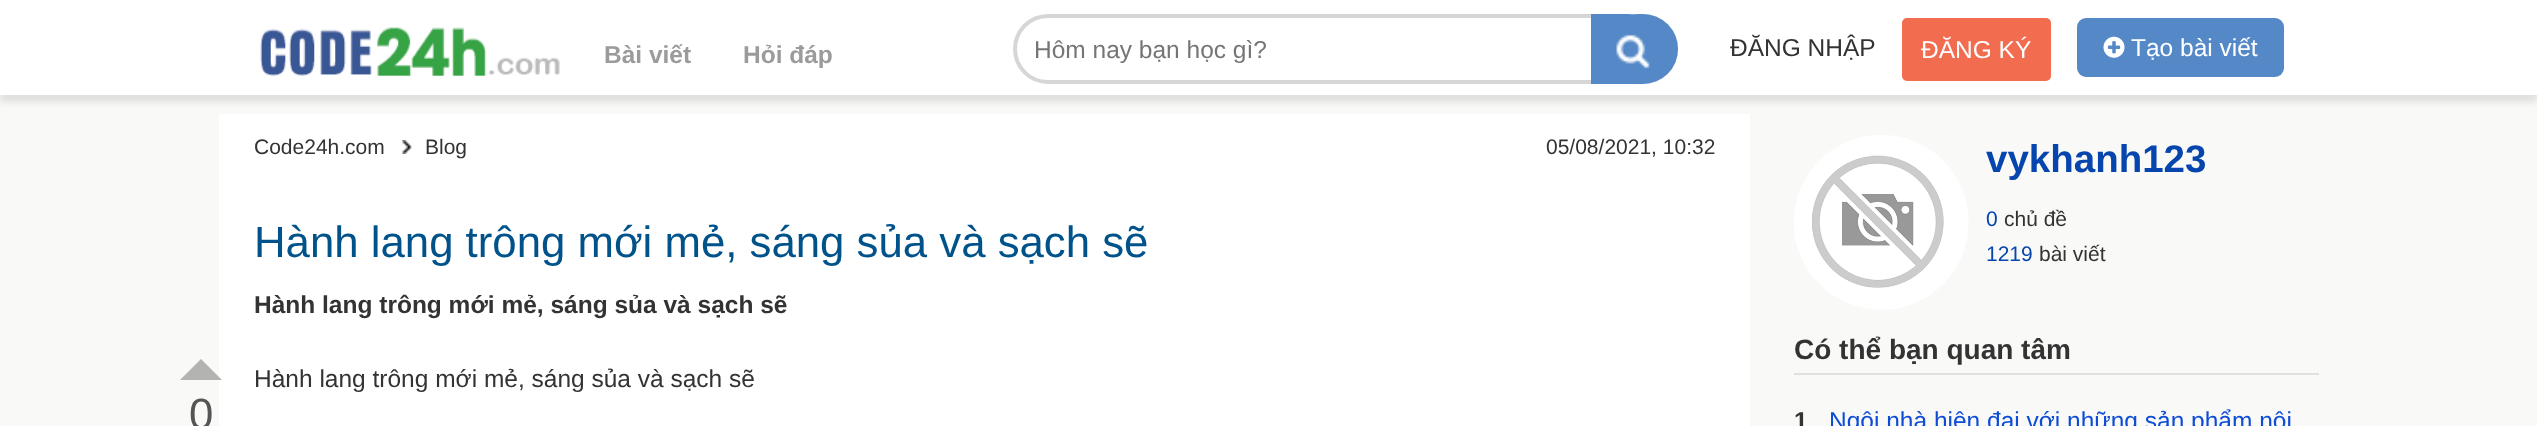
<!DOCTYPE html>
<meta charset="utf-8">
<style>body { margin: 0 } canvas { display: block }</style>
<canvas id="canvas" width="2537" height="426"></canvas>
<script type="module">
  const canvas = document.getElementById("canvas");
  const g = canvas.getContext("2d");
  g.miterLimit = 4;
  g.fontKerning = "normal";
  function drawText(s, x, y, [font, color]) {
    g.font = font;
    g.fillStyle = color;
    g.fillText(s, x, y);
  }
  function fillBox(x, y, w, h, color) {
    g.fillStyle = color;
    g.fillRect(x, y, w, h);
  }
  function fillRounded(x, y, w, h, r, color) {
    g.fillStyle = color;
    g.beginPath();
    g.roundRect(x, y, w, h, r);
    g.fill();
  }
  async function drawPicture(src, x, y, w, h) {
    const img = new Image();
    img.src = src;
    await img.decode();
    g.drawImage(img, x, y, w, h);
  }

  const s1 = ["bold 24.5px Liberation Sans", "#9B9B9B"];
  const s2 = ["24.5px Liberation Sans", "#757575"];
  const s3 = ["24.5px Liberation Sans", "#333333"];
  const s4 = ["24.5px Liberation Sans", "#FFFFFF"];
  const s5 = ["43.75px Liberation Sans", "#555555"];
  const s6 = ["21px Liberation Sans", "#333333"];
  const s7 = ["43.75px Liberation Sans", "#00528B"];
  const s8 = ["bold 24.5px Liberation Sans", "#333333"];
  const s9 = ["bold 38.5px Liberation Sans", "#0645AD"];
  const s10 = ["21px Liberation Sans", "#0645AD"];
  const s11 = ["bold 28px Liberation Sans", "#333333"];
  const s12 = ["24.5px Liberation Sans", "#0E4CD7"];

  fillBox(0, 0, 2537, 426, "#F9FAF7");
  g.fillStyle = "rgba(0, 0, 0, 0.1)";
  g.filter = "blur(3.5px)";
  g.beginPath();
  g.rect(0, 7, 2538, 95);
  g.fill();
  g.filter = "none";
  fillBox(0, 0, 2537, 95, "#FFFFFF");
  await drawPicture("pic1.png", 260, 27, 300, 49);
  drawText("Bài viết", 604, 63, s1);
  drawText("Hỏi đáp", 743, 63, s1);
  g.beginPath();
  g.roundRect(1015, 16, 661, 66, 33);
  g.strokeStyle = "#D6D6D7";
  g.lineWidth = 4;
  g.stroke();
  drawText("Hôm nay bạn học gì?", 1034, 58, s2);
  g.fillStyle = "#5488C7";
  g.beginPath();
  g.roundRect(1591, 14, 87, 70, [0, 35, 35, 0]);
  g.fill();
  await drawPicture("pic2.png", 1616, 14, 34, 55);
  drawText("ĐĂNG NHẬP", 1730, 56, s3);
  g.fillStyle = "#F26C50";
  g.beginPath();
  g.roundRect(1903, 19, 147, 61, 4);
  g.fill();
  g.strokeStyle = "#F26C4F";
  g.lineWidth = 2;
  g.stroke();
  drawText("ĐĂNG KÝ", 1921, 58, s4);
  fillRounded(2077, 18, 207, 59, 9, "#5488C7");
  await drawPicture("pic3.png", 2103, 36, 22, 22);
  drawText("Tạo bài viết", 2131, 56, s4);
  fillBox(219, 114, 1531, 312, "#FFFFFF");
  g.fillStyle = "rgba(155, 155, 155, 0.75)";
  g.beginPath();
  g.moveTo(222, 380);
  g.lineTo(180, 380);
  g.lineTo(201, 359);
  g.closePath();
  g.fill();
  drawText("0", 189, 429, s5);
  drawText("Code24h.com", 254, 154, s6);
  await drawPicture("pic4.png", 402, 140, 10, 14);
  drawText("Blog", 425, 154, s6);
  drawText("05/08/2021, 10:32", 1546, 154, s6);
  drawText("Hành lang trông mới mẻ, sáng sủa và sạch sẽ", 254, 257, s7);
  drawText("Hành lang trông mới mẻ, sáng sủa và sạch sẽ", 254, 313, s8);
  drawText("Hành lang trông mới mẻ, sáng sủa và sạch sẽ", 254, 387, s3);
  await drawPicture("pic5.png", 1794, 135, 175, 175);
  drawText("vykhanh123", 1986, 172, s9);
  drawText("0", 1986, 226, s10);
  drawText("chủ đề", 2004, 226, s6);
  drawText("1219", 1986, 261, s10);
  drawText("bài viết", 2039, 261, s6);
  fillBox(1794, 373, 525, 2, "#E0E1DE");
  drawText("Có thể bạn quan tâm", 1794, 359, s11);
  drawText("1", 1794, 429, s8);
  drawText("Ngôi nhà hiện đại với những sản phẩm nội", 1829, 429, s12);
</script>
